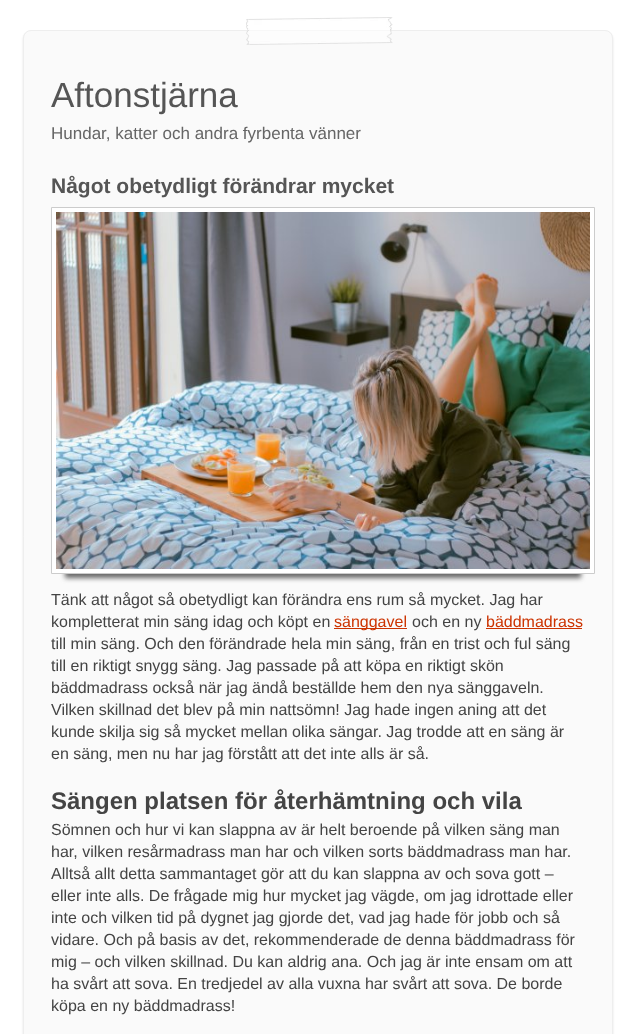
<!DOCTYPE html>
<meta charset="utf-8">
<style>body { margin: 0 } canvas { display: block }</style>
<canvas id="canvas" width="636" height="1034"></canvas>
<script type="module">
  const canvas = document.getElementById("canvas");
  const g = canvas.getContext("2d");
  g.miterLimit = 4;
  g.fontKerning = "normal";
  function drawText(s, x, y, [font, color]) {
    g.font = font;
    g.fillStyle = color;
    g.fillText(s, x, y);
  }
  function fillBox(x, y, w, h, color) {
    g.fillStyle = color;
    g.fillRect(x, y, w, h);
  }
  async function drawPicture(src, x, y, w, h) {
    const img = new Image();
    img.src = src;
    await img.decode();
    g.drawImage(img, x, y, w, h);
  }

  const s1 = ["35px Liberation Sans", "#555555"];
  const s2 = ["17px Liberation Sans", "#666666"];
  const s3 = ["bold 21px Liberation Sans", "#555555"];
  const s4 = ["16px Liberation Sans", "#444444"];
  const s5 = ["16px Liberation Sans", "#CC3300"];
  const s6 = ["bold 24px Liberation Sans", "#444444"];

  fillBox(0, 0, 636, 1034, "#FFFFFF");
  g.fillStyle = "rgba(0, 0, 0, 0.1)";
  g.filter = "blur(1px)";
  g.beginPath();
  g.roundRect(23, 32, 590, 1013, 8);
  g.fill();
  g.filter = "none";
  g.fillStyle = "#FAFAFA";
  g.beginPath();
  g.roundRect(23.5, 30.5, 589, 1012, 7.5);
  g.fill();
  g.strokeStyle = "#EEEEEE";
  g.stroke();
  await drawPicture("pic1.png", 246, 17, 147, 28);
  drawText("Aftonstjärna", 51, 107, s1);
  drawText("Hundar, katter och andra fyrbenta vänner", 51, 139, s2);
  drawText("Något obetydligt förändrar mycket", 51, 193, s3);
  g.fillStyle = "#666666";
  g.filter = "blur(2.5px)";
  g.beginPath();
  g.rect(65, 239, 516, 339);
  g.fill();
  g.filter = "none";
  g.fillStyle = "#FFFFFF";
  g.beginPath();
  g.rect(51.5, 207.5, 543, 366);
  g.fill();
  g.strokeStyle = "#CCCCCC";
  g.stroke();
  await drawPicture("pic2.png", 56, 212, 534, 357);
  drawText("Tänk att något så obetydligt kan förändra ens rum så mycket. Jag har", 51, 605, s4);
  drawText("kompletterat min säng idag och köpt en", 51, 627, s4);
  fillBox(334, 628, 73, 1, "#CC3300");
  drawText("sänggavel", 334, 627, s5);
  drawText("och en ny", 412, 627, s4);
  drawText("bäddmadrass", 486, 627, s5);
  fillBox(486, 628, 96, 1, "#CC3300");
  drawText("till min säng. Och den förändrade hela min säng, från en trist och ful säng", 51, 649, s4);
  drawText("till en riktigt snygg säng. Jag passade på att köpa en riktigt skön", 51, 671, s4);
  drawText("bäddmadrass också när jag ändå beställde hem den nya sänggaveln.", 51, 693, s4);
  drawText("Vilken skillnad det blev på min nattsömn! Jag hade ingen aning att det", 51, 715, s4);
  drawText("kunde skilja sig så mycket mellan olika sängar. Jag trodde att en säng är", 51, 737, s4);
  drawText("en säng, men nu har jag förstått att det inte alls är så.", 51, 759, s4);
  drawText("Sängen platsen för återhämtning och vila", 51, 809, s6);
  drawText("Sömnen och hur vi kan slappna av är helt beroende på vilken säng man", 51, 835, s4);
  drawText("har, vilken resårmadrass man har och vilken sorts bäddmadrass man har.", 51, 857, s4);
  drawText("Alltså allt detta sammantaget gör att du kan slappna av och sova gott –", 51, 879, s4);
  drawText("eller inte alls. De frågade mig hur mycket jag vägde, om jag idrottade eller", 51, 901, s4);
  drawText("inte och vilken tid på dygnet jag gjorde det, vad jag hade för jobb och så", 51, 923, s4);
  drawText("vidare. Och på basis av det, rekommenderade de denna bäddmadrass för", 51, 945, s4);
  drawText("mig – och vilken skillnad. Du kan aldrig ana. Och jag är inte ensam om att", 51, 967, s4);
  drawText("ha svårt att sova. En tredjedel av alla vuxna har svårt att sova. De borde", 51, 989, s4);
  drawText("köpa en ny bäddmadrass!", 51, 1011, s4);
</script>
